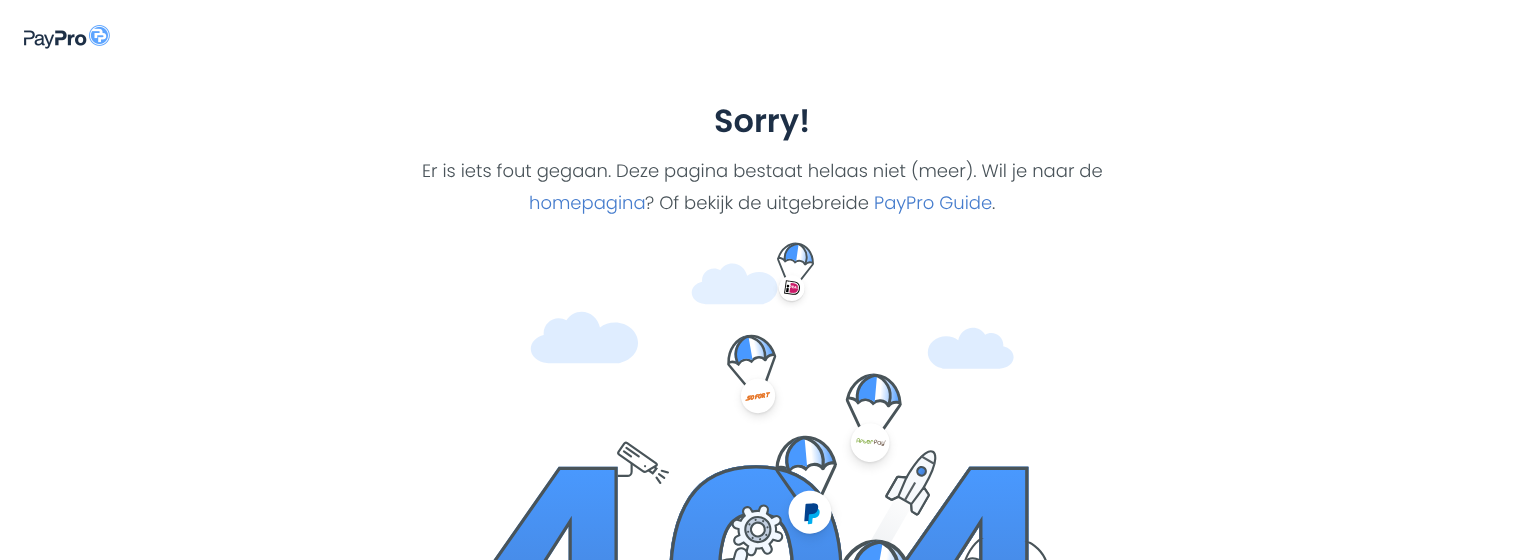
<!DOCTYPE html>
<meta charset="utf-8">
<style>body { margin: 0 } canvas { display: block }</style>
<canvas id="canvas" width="1524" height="560"></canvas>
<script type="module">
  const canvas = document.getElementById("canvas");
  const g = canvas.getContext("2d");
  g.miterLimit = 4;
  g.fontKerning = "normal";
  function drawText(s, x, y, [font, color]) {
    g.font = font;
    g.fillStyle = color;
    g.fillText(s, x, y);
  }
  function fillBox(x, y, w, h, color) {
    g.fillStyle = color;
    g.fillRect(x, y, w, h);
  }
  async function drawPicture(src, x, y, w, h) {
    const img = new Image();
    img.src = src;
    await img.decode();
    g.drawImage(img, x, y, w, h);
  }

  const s1 = ["600 32px Poppins", "#1D2F46"];
  const s2 = ["300 18px Poppins", "#495359"];
  const s3 = ["300 18px Poppins", "#457CCD"];

  fillBox(0, 0, 1524, 560, "#FFFFFF");
  await drawPicture("pic1.png", 24, 25, 86, 24);
  drawText("Sorry!", 714, 132, s1);
  drawText("Er is iets fout gegaan. Deze pagina bestaat helaas niet (meer). Wil je naar de", 422, 177, s2);
  drawText("homepagina", 529, 209, s3);
  drawText("? Of bekijk de uitgebreide", 645, 209, s2);
  drawText("PayPro Guide", 874, 209, s3);
  drawText(".", 992, 209, s2);
  await drawPicture("pic2.png", 493, 242, 554, 318);
</script>
